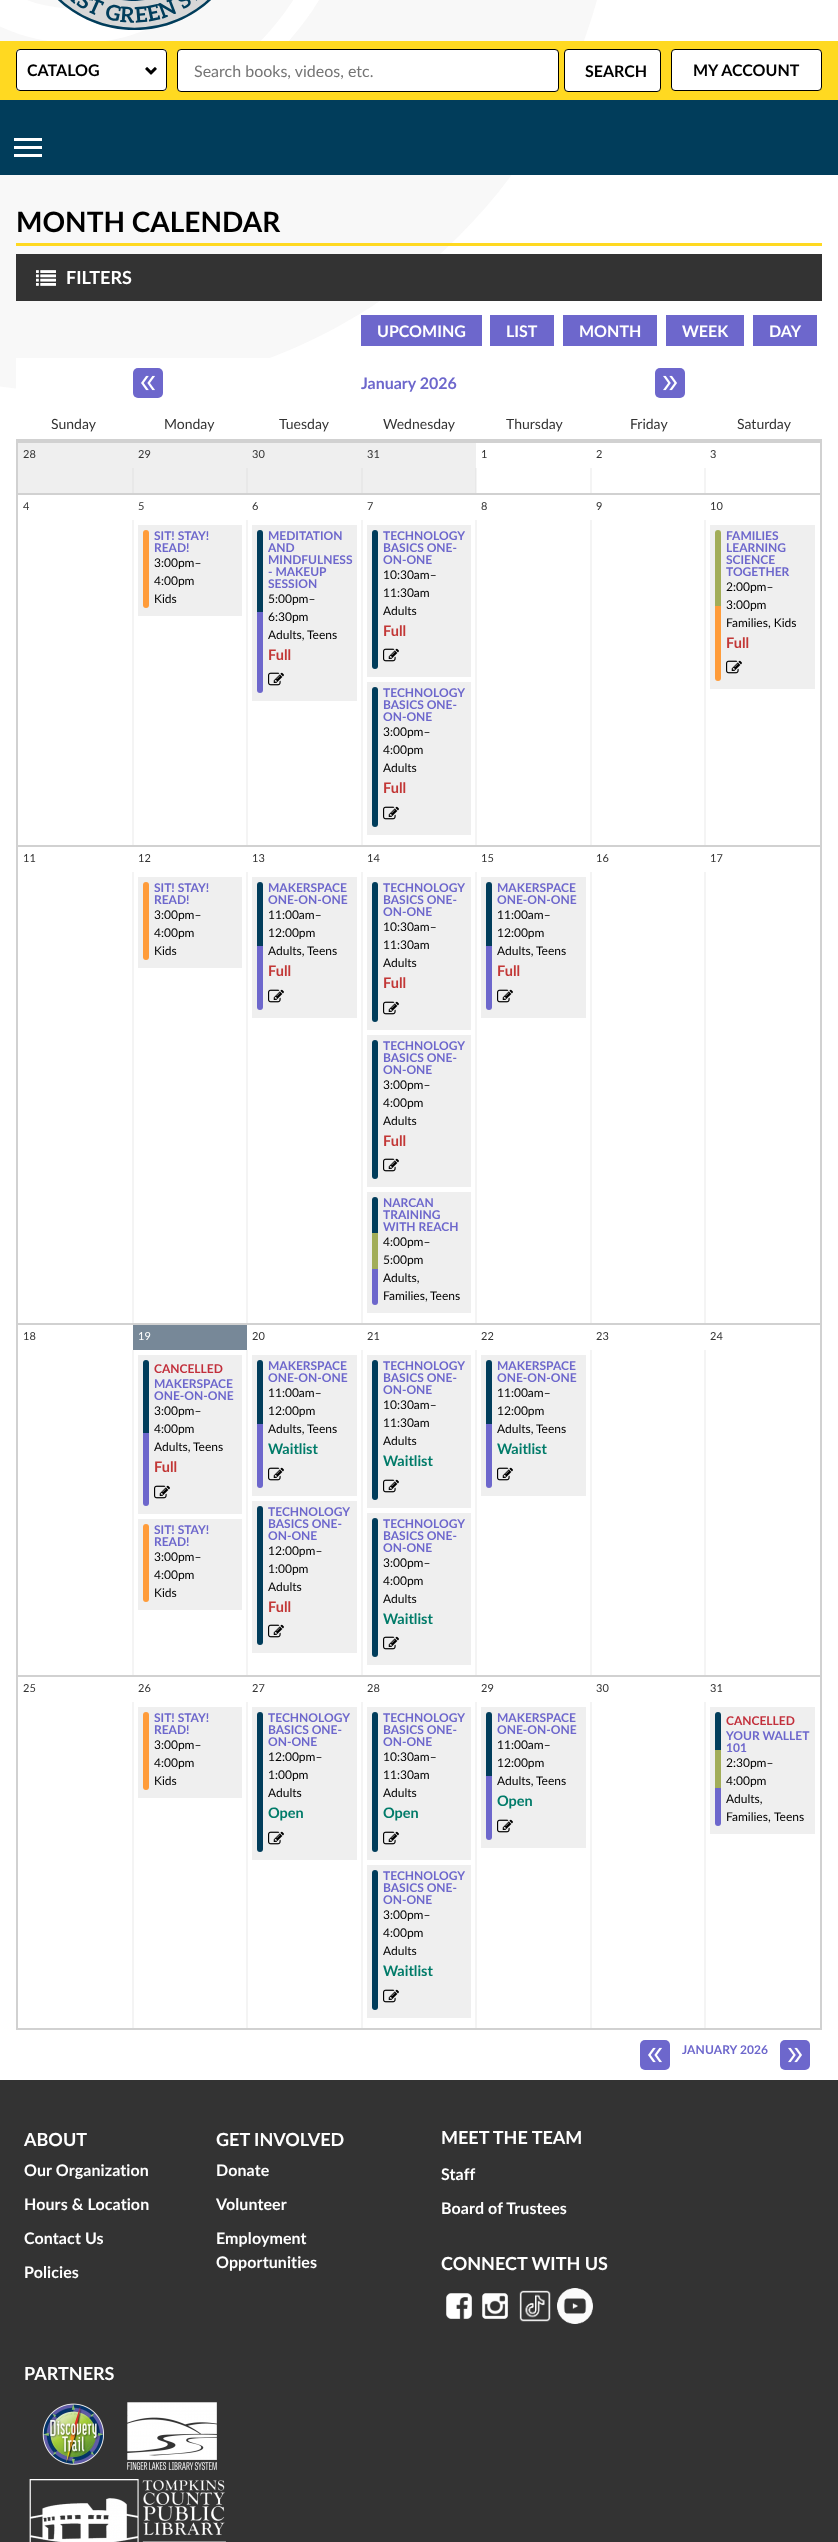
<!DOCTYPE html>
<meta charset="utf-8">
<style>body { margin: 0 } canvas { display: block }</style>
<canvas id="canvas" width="838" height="2542"></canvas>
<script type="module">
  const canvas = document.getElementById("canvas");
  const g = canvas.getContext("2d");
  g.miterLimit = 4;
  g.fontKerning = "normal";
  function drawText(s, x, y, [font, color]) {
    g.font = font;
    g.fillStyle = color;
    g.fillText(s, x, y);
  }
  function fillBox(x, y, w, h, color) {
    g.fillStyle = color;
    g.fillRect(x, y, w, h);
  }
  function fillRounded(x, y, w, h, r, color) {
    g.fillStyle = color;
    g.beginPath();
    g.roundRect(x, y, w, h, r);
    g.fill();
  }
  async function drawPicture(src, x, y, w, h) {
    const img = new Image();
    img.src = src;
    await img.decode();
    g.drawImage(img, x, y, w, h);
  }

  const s1 = ["bold 16px Lato", "#000000"];
  const s2 = ["16px Lato", "#757575"];
  const s3 = ["bold 28px Lato", "#000000"];
  const s4 = ["bold 18px Lato", "#FFFFFF"];
  const s5 = ["bold 16px Lato", "#FFFFFF"];
  const s6 = ["bold 16px Lato", "#6D67CC"];
  const s7 = ["14px Lato", "#333333"];
  const s8 = ["11px Lato", "#333333"];
  const s9 = ["bold 12px Lato", "#6D67CC"];
  const s10 = ["12px Lato", "#000000"];
  const s11 = ["bold 14.5px Lato", "#C23736"];
  const s12 = ["11px Lato", "#FFFFFF"];
  const s13 = ["bold 12px Lato", "#C22F3B"];
  const s14 = ["bold 14.5px Lato", "#007B69"];

  fillBox(0, 0, 838, 2542, "#FFFFFF");
  await drawPicture("pic1.png", 0, 0, 597, 389);
  await drawPicture("pic2.png", 58, 0, 153, 30);
  fillBox(0, 41, 838, 59, "#FFD921");
  fillRounded(16, 49, 151, 42, 4, "#FFFFFF");
  await drawPicture("pic3.png", 145, 67, 12, 8);
  g.beginPath();
  g.roundRect(16.5, 49.5, 150, 41, 3.5);
  g.strokeStyle = "#000000";
  g.stroke();
  drawText("CATALOG", 27, 76, s1);
  g.fillStyle = "#FFFFFF";
  g.beginPath();
  g.roundRect(177.5, 49.5, 381, 42, 3.5);
  g.fill();
  g.stroke();
  drawText("Search books, videos, etc.", 194, 77, s2);
  g.fillStyle = "#FFFFFF";
  g.beginPath();
  g.roundRect(564.5, 49.5, 96, 42, 3.5);
  g.fill();
  g.stroke();
  drawText("SEARCH", 585, 77, s1);
  g.fillStyle = "#FFFFFF";
  g.beginPath();
  g.roundRect(671.5, 49.5, 150, 41, 3.5);
  g.fill();
  g.stroke();
  drawText("MY ACCOUNT", 693, 76, s1);
  fillBox(0, 100, 838, 75, "#013D5B");
  fillBox(14, 138, 28, 3, "#FFFFFF");
  fillBox(14, 146, 28, 3, "#FFFFFF");
  fillBox(14, 154, 28, 3, "#FFFFFF");
  fillBox(16, 243, 806, 3, "#FFD921");
  drawText("MONTH CALENDAR", 16, 232, s3);
  fillBox(16, 254, 806, 47, "#333333");
  await drawPicture("pic4.png", 36, 270, 20, 16);
  drawText("FILTERS", 66, 284, s4);
  fillBox(361, 315, 121, 31, "#6D67CC");
  drawText("UPCOMING", 377, 337, s5);
  fillBox(490, 315, 64, 31, "#6D67CC");
  drawText("LIST", 506, 337, s5);
  fillBox(563, 315, 94, 31, "#6D67CC");
  drawText("MONTH", 579, 337, s5);
  fillBox(666, 315, 78, 31, "#6D67CC");
  drawText("WEEK", 682, 337, s5);
  fillBox(753, 315, 64, 31, "#6D67CC");
  drawText("DAY", 769, 337, s5);
  fillBox(16, 358, 253, 31, "#FFFFFF");
  fillRounded(133, 368, 30, 30, 5, "#6D67CC");
  await drawPicture("pic5.png", 141, 375, 14, 16);
  drawText("January 2026", 361, 389, s6);
  fillRounded(655, 368, 30, 30, 5, "#6D67CC");
  await drawPicture("pic6.png", 663, 375, 14, 16);
  drawText("Sunday", 51, 429, s7);
  drawText("Monday", 164, 429, s7);
  drawText("Tuesday", 279, 429, s7);
  drawText("Wednesday", 383, 429, s7);
  drawText("Thursday", 506, 429, s7);
  drawText("Friday", 630, 429, s7);
  drawText("Saturday", 737, 429, s7);
  g.strokeStyle = "#D1D1D1";
  g.lineWidth = 2;
  g.strokeRect(17, 440, 804, 1589);
  fillBox(18, 441, 802, 2, "#D1D1D1");
  fillBox(18, 443, 458, 25, "#EFEFEF");
  drawText("28", 23, 458, s8);
  drawText("29", 138, 458, s8);
  drawText("30", 252, 458, s8);
  drawText("31", 367, 458, s8);
  drawText("1", 481, 458, s8);
  drawText("2", 596, 458, s8);
  drawText("3", 710, 458, s8);
  fillBox(18, 468, 114, 25, "#EFEFEF");
  fillBox(132, 468, 2, 25, "#E8E8E8");
  fillBox(134, 468, 112, 25, "#EFEFEF");
  fillBox(246, 468, 2, 25, "#E8E8E8");
  fillBox(248, 468, 113, 25, "#EFEFEF");
  fillBox(361, 468, 2, 25, "#E8E8E8");
  fillBox(363, 468, 112, 25, "#EFEFEF");
  fillBox(475, 468, 1, 25, "#E8E8E8");
  fillBox(476, 468, 1, 25, "#F4F4F4");
  fillBox(590, 468, 2, 25, "#F4F4F4");
  fillBox(704, 468, 2, 25, "#F4F4F4");
  fillBox(18, 493, 802, 2, "#D1D1D1");
  drawText("4", 23, 510, s8);
  drawText("5", 138, 510, s8);
  drawText("6", 252, 510, s8);
  drawText("7", 367, 510, s8);
  drawText("8", 481, 510, s8);
  drawText("9", 596, 510, s8);
  drawText("10", 710, 510, s8);
  fillBox(132, 520, 2, 325, "#F4F4F4");
  fillBox(246, 520, 2, 325, "#F4F4F4");
  fillBox(361, 520, 2, 325, "#F4F4F4");
  fillBox(475, 520, 2, 325, "#F4F4F4");
  fillBox(590, 520, 2, 325, "#F4F4F4");
  fillBox(704, 520, 2, 325, "#F4F4F4");
  fillBox(138, 525, 104, 91, "#EFEFEF");
  fillRounded(143, 530, 6, 78, 3, "#FF9C3A");
  drawText("SIT! STAY!", 154, 540, s9);
  drawText("READ!", 154, 552, s9);
  drawText("3:00pm–", 154, 567, s10);
  drawText("4:00pm", 154, 585, s10);
  drawText("Kids", 154, 603, s10);
  fillBox(252, 525, 105, 176, "#EFEFEF");
  g.fillStyle = "#013D5B";
  g.beginPath();
  g.roundRect(257, 530, 6, 82, [3, 3, 0, 0]);
  g.fill();
  g.fillStyle = "#6D67CC";
  g.beginPath();
  g.roundRect(257, 612, 6, 81, [0, 0, 3, 3]);
  g.fill();
  drawText("MEDITATION", 268, 540, s9);
  drawText("AND", 268, 552, s9);
  drawText("MINDFULNESS", 268, 564, s9);
  drawText("- MAKEUP", 268, 576, s9);
  drawText("SESSION", 268, 588, s9);
  drawText("5:00pm–", 268, 603, s10);
  drawText("6:30pm", 268, 621, s10);
  drawText("Adults,", 268, 639, s10);
  drawText("Teens", 307, 639, s10);
  drawText("Full", 268, 660, s11);
  await drawPicture("pic7.png", 268, 672, 16, 14);
  fillBox(367, 525, 104, 152, "#EFEFEF");
  fillRounded(372, 530, 6, 139, 3, "#013D5B");
  drawText("TECHNOLOGY", 383, 540, s9);
  drawText("BASICS ONE-", 383, 552, s9);
  drawText("ON-ONE", 383, 564, s9);
  drawText("10:30am–", 383, 579, s10);
  drawText("11:30am", 383, 597, s10);
  drawText("Adults", 383, 615, s10);
  drawText("Full", 383, 636, s11);
  await drawPicture("pic7.png", 383, 648, 16, 14);
  fillBox(367, 682, 104, 153, "#EFEFEF");
  fillRounded(372, 687, 6, 140, 3, "#013D5B");
  drawText("TECHNOLOGY", 383, 697, s9);
  drawText("BASICS ONE-", 383, 709, s9);
  drawText("ON-ONE", 383, 721, s9);
  drawText("3:00pm–", 383, 736, s10);
  drawText("4:00pm", 383, 754, s10);
  drawText("Adults", 383, 772, s10);
  drawText("Full", 383, 793, s11);
  await drawPicture("pic7.png", 383, 806, 16, 14);
  fillBox(710, 525, 105, 164, "#EFEFEF");
  g.fillStyle = "#A2AD58";
  g.beginPath();
  g.roundRect(715, 530, 6, 76, [3, 3, 0, 0]);
  g.fill();
  g.fillStyle = "#FF9C3A";
  g.beginPath();
  g.roundRect(715, 606, 6, 75, [0, 0, 3, 3]);
  g.fill();
  drawText("FAMILIES", 726, 540, s9);
  drawText("LEARNING", 726, 552, s9);
  drawText("SCIENCE", 726, 564, s9);
  drawText("TOGETHER", 726, 576, s9);
  drawText("2:00pm–", 726, 591, s10);
  drawText("3:00pm", 726, 609, s10);
  drawText("Families, Kids", 726, 627, s10);
  drawText("Full", 726, 648, s11);
  await drawPicture("pic7.png", 726, 660, 16, 14);
  fillBox(18, 845, 802, 2, "#D1D1D1");
  drawText("11", 23, 862, s8);
  drawText("12", 138, 862, s8);
  drawText("13", 252, 862, s8);
  drawText("14", 367, 862, s8);
  drawText("15", 481, 862, s8);
  drawText("16", 596, 862, s8);
  drawText("17", 710, 862, s8);
  fillBox(132, 872, 2, 451, "#F4F4F4");
  fillBox(246, 872, 2, 451, "#F4F4F4");
  fillBox(361, 872, 2, 451, "#F4F4F4");
  fillBox(475, 872, 2, 451, "#F4F4F4");
  fillBox(590, 872, 2, 451, "#F4F4F4");
  fillBox(704, 872, 2, 451, "#F4F4F4");
  fillBox(138, 877, 104, 91, "#EFEFEF");
  fillRounded(143, 882, 6, 78, 3, "#FF9C3A");
  drawText("SIT! STAY!", 154, 892, s9);
  drawText("READ!", 154, 904, s9);
  drawText("3:00pm–", 154, 919, s10);
  drawText("4:00pm", 154, 937, s10);
  drawText("Kids", 154, 955, s10);
  fillBox(252, 877, 105, 141, "#EFEFEF");
  g.fillStyle = "#013D5B";
  g.beginPath();
  g.roundRect(257, 882, 6, 64, [3, 3, 0, 0]);
  g.fill();
  g.fillStyle = "#6D67CC";
  g.beginPath();
  g.roundRect(257, 946, 6, 64, [0, 0, 3, 3]);
  g.fill();
  drawText("MAKERSPACE", 268, 892, s9);
  drawText("ONE-ON-ONE", 268, 904, s9);
  drawText("11:00am–", 268, 919, s10);
  drawText("12:00pm", 268, 937, s10);
  drawText("Adults,", 268, 955, s10);
  drawText("Teens", 307, 955, s10);
  drawText("Full", 268, 976, s11);
  await drawPicture("pic7.png", 268, 989, 16, 14);
  fillBox(367, 877, 104, 153, "#EFEFEF");
  fillRounded(372, 882, 6, 140, 3, "#013D5B");
  drawText("TECHNOLOGY", 383, 892, s9);
  drawText("BASICS ONE-", 383, 904, s9);
  drawText("ON-ONE", 383, 916, s9);
  drawText("10:30am–", 383, 931, s10);
  drawText("11:30am", 383, 949, s10);
  drawText("Adults", 383, 967, s10);
  drawText("Full", 383, 988, s11);
  await drawPicture("pic7.png", 383, 1001, 16, 14);
  fillBox(367, 1035, 104, 152, "#EFEFEF");
  fillRounded(372, 1040, 6, 139, 3, "#013D5B");
  drawText("TECHNOLOGY", 383, 1050, s9);
  drawText("BASICS ONE-", 383, 1062, s9);
  drawText("ON-ONE", 383, 1074, s9);
  drawText("3:00pm–", 383, 1089, s10);
  drawText("4:00pm", 383, 1107, s10);
  drawText("Adults", 383, 1125, s10);
  drawText("Full", 383, 1146, s11);
  await drawPicture("pic7.png", 383, 1158, 16, 14);
  fillBox(367, 1192, 104, 121, "#EFEFEF");
  g.fillStyle = "#013D5B";
  g.beginPath();
  g.roundRect(372, 1197, 6, 36, [3, 3, 0, 0]);
  g.fill();
  fillBox(372, 1233, 6, 36, "#A2AD58");
  g.fillStyle = "#6D67CC";
  g.beginPath();
  g.roundRect(372, 1269, 6, 36, [0, 0, 3, 3]);
  g.fill();
  drawText("NARCAN", 383, 1207, s9);
  drawText("TRAINING", 383, 1219, s9);
  drawText("WITH REACH", 383, 1231, s9);
  drawText("4:00pm–", 383, 1246, s10);
  drawText("5:00pm", 383, 1264, s10);
  drawText("Adults,", 383, 1282, s10);
  drawText("Families,", 383, 1300, s10);
  drawText("Teens", 430, 1300, s10);
  fillBox(481, 877, 105, 141, "#EFEFEF");
  g.fillStyle = "#013D5B";
  g.beginPath();
  g.roundRect(486, 882, 6, 64, [3, 3, 0, 0]);
  g.fill();
  g.fillStyle = "#6D67CC";
  g.beginPath();
  g.roundRect(486, 946, 6, 64, [0, 0, 3, 3]);
  g.fill();
  drawText("MAKERSPACE", 497, 892, s9);
  drawText("ONE-ON-ONE", 497, 904, s9);
  drawText("11:00am–", 497, 919, s10);
  drawText("12:00pm", 497, 937, s10);
  drawText("Adults,", 497, 955, s10);
  drawText("Teens", 536, 955, s10);
  drawText("Full", 497, 976, s11);
  await drawPicture("pic7.png", 497, 989, 16, 14);
  fillBox(18, 1323, 802, 2, "#D1D1D1");
  drawText("18", 23, 1340, s8);
  fillBox(133, 1325, 114, 25, "#778898");
  drawText("19", 138, 1340, s12);
  drawText("20", 252, 1340, s8);
  drawText("21", 367, 1340, s8);
  drawText("22", 481, 1340, s8);
  drawText("23", 596, 1340, s8);
  drawText("24", 710, 1340, s8);
  fillBox(132, 1350, 2, 325, "#F4F4F4");
  fillBox(246, 1350, 2, 325, "#F4F4F4");
  fillBox(361, 1350, 2, 325, "#F4F4F4");
  fillBox(475, 1350, 2, 325, "#F4F4F4");
  fillBox(590, 1350, 2, 325, "#F4F4F4");
  fillBox(704, 1350, 2, 325, "#F4F4F4");
  fillBox(138, 1355, 104, 159, "#EFEFEF");
  g.fillStyle = "#013D5B";
  g.beginPath();
  g.roundRect(143, 1360, 6, 73, [3, 3, 0, 0]);
  g.fill();
  g.fillStyle = "#6D67CC";
  g.beginPath();
  g.roundRect(143, 1433, 6, 73, [0, 0, 3, 3]);
  g.fill();
  drawText("CANCELLED", 154, 1373, s13);
  drawText("MAKERSPACE", 154, 1388, s9);
  drawText("ONE-ON-ONE", 154, 1400, s9);
  drawText("3:00pm–", 154, 1415, s10);
  drawText("4:00pm", 154, 1433, s10);
  drawText("Adults,", 154, 1451, s10);
  drawText("Teens", 193, 1451, s10);
  drawText("Full", 154, 1472, s11);
  await drawPicture("pic7.png", 154, 1485, 16, 14);
  fillBox(138, 1519, 104, 91, "#EFEFEF");
  fillRounded(143, 1524, 6, 78, 3, "#FF9C3A");
  drawText("SIT! STAY!", 154, 1534, s9);
  drawText("READ!", 154, 1546, s9);
  drawText("3:00pm–", 154, 1561, s10);
  drawText("4:00pm", 154, 1579, s10);
  drawText("Kids", 154, 1597, s10);
  fillBox(252, 1355, 105, 141, "#EFEFEF");
  g.fillStyle = "#013D5B";
  g.beginPath();
  g.roundRect(257, 1360, 6, 64, [3, 3, 0, 0]);
  g.fill();
  g.fillStyle = "#6D67CC";
  g.beginPath();
  g.roundRect(257, 1424, 6, 64, [0, 0, 3, 3]);
  g.fill();
  drawText("MAKERSPACE", 268, 1370, s9);
  drawText("ONE-ON-ONE", 268, 1382, s9);
  drawText("11:00am–", 268, 1397, s10);
  drawText("12:00pm", 268, 1415, s10);
  drawText("Adults,", 268, 1433, s10);
  drawText("Teens", 307, 1433, s10);
  drawText("Waitlist", 268, 1454, s14);
  await drawPicture("pic7.png", 268, 1467, 16, 14);
  fillBox(252, 1501, 105, 152, "#EFEFEF");
  fillRounded(257, 1506, 6, 139, 3, "#013D5B");
  drawText("TECHNOLOGY", 268, 1516, s9);
  drawText("BASICS ONE-", 268, 1528, s9);
  drawText("ON-ONE", 268, 1540, s9);
  drawText("12:00pm–", 268, 1555, s10);
  drawText("1:00pm", 268, 1573, s10);
  drawText("Adults", 268, 1591, s10);
  drawText("Full", 268, 1612, s11);
  await drawPicture("pic7.png", 268, 1624, 16, 14);
  fillBox(367, 1355, 104, 153, "#EFEFEF");
  fillRounded(372, 1360, 6, 140, 3, "#013D5B");
  drawText("TECHNOLOGY", 383, 1370, s9);
  drawText("BASICS ONE-", 383, 1382, s9);
  drawText("ON-ONE", 383, 1394, s9);
  drawText("10:30am–", 383, 1409, s10);
  drawText("11:30am", 383, 1427, s10);
  drawText("Adults", 383, 1445, s10);
  drawText("Waitlist", 383, 1466, s14);
  await drawPicture("pic7.png", 383, 1479, 16, 14);
  fillBox(367, 1513, 104, 152, "#EFEFEF");
  fillRounded(372, 1518, 6, 139, 3, "#013D5B");
  drawText("TECHNOLOGY", 383, 1528, s9);
  drawText("BASICS ONE-", 383, 1540, s9);
  drawText("ON-ONE", 383, 1552, s9);
  drawText("3:00pm–", 383, 1567, s10);
  drawText("4:00pm", 383, 1585, s10);
  drawText("Adults", 383, 1603, s10);
  drawText("Waitlist", 383, 1624, s14);
  await drawPicture("pic7.png", 383, 1636, 16, 14);
  fillBox(481, 1355, 105, 141, "#EFEFEF");
  g.fillStyle = "#013D5B";
  g.beginPath();
  g.roundRect(486, 1360, 6, 64, [3, 3, 0, 0]);
  g.fill();
  g.fillStyle = "#6D67CC";
  g.beginPath();
  g.roundRect(486, 1424, 6, 64, [0, 0, 3, 3]);
  g.fill();
  drawText("MAKERSPACE", 497, 1370, s9);
  drawText("ONE-ON-ONE", 497, 1382, s9);
  drawText("11:00am–", 497, 1397, s10);
  drawText("12:00pm", 497, 1415, s10);
  drawText("Adults,", 497, 1433, s10);
  drawText("Teens", 536, 1433, s10);
  drawText("Waitlist", 497, 1454, s14);
  await drawPicture("pic7.png", 497, 1467, 16, 14);
  fillBox(18, 1675, 802, 2, "#D1D1D1");
  drawText("25", 23, 1692, s8);
  drawText("26", 138, 1692, s8);
  drawText("27", 252, 1692, s8);
  drawText("28", 367, 1692, s8);
  drawText("29", 481, 1692, s8);
  drawText("30", 596, 1692, s8);
  drawText("31", 710, 1692, s8);
  fillBox(132, 1702, 2, 326, "#F4F4F4");
  fillBox(246, 1702, 2, 326, "#F4F4F4");
  fillBox(361, 1702, 2, 326, "#F4F4F4");
  fillBox(475, 1702, 2, 326, "#F4F4F4");
  fillBox(590, 1702, 2, 326, "#F4F4F4");
  fillBox(704, 1702, 2, 326, "#F4F4F4");
  fillBox(138, 1707, 104, 91, "#EFEFEF");
  fillRounded(143, 1712, 6, 78, 3, "#FF9C3A");
  drawText("SIT! STAY!", 154, 1722, s9);
  drawText("READ!", 154, 1734, s9);
  drawText("3:00pm–", 154, 1749, s10);
  drawText("4:00pm", 154, 1767, s10);
  drawText("Kids", 154, 1785, s10);
  fillBox(252, 1707, 105, 153, "#EFEFEF");
  fillRounded(257, 1712, 6, 140, 3, "#013D5B");
  drawText("TECHNOLOGY", 268, 1722, s9);
  drawText("BASICS ONE-", 268, 1734, s9);
  drawText("ON-ONE", 268, 1746, s9);
  drawText("12:00pm–", 268, 1761, s10);
  drawText("1:00pm", 268, 1779, s10);
  drawText("Adults", 268, 1797, s10);
  drawText("Open", 268, 1818, s14);
  await drawPicture("pic7.png", 268, 1831, 16, 14);
  fillBox(367, 1707, 104, 153, "#EFEFEF");
  fillRounded(372, 1712, 6, 140, 3, "#013D5B");
  drawText("TECHNOLOGY", 383, 1722, s9);
  drawText("BASICS ONE-", 383, 1734, s9);
  drawText("ON-ONE", 383, 1746, s9);
  drawText("10:30am–", 383, 1761, s10);
  drawText("11:30am", 383, 1779, s10);
  drawText("Adults", 383, 1797, s10);
  drawText("Open", 383, 1818, s14);
  await drawPicture("pic7.png", 383, 1831, 16, 14);
  fillBox(367, 1865, 104, 153, "#EFEFEF");
  fillRounded(372, 1870, 6, 140, 3, "#013D5B");
  drawText("TECHNOLOGY", 383, 1880, s9);
  drawText("BASICS ONE-", 383, 1892, s9);
  drawText("ON-ONE", 383, 1904, s9);
  drawText("3:00pm–", 383, 1919, s10);
  drawText("4:00pm", 383, 1937, s10);
  drawText("Adults", 383, 1955, s10);
  drawText("Waitlist", 383, 1976, s14);
  await drawPicture("pic7.png", 383, 1989, 16, 14);
  fillBox(481, 1707, 105, 141, "#EFEFEF");
  g.fillStyle = "#013D5B";
  g.beginPath();
  g.roundRect(486, 1712, 6, 64, [3, 3, 0, 0]);
  g.fill();
  g.fillStyle = "#6D67CC";
  g.beginPath();
  g.roundRect(486, 1776, 6, 64, [0, 0, 3, 3]);
  g.fill();
  drawText("MAKERSPACE", 497, 1722, s9);
  drawText("ONE-ON-ONE", 497, 1734, s9);
  drawText("11:00am–", 497, 1749, s10);
  drawText("12:00pm", 497, 1767, s10);
  drawText("Adults,", 497, 1785, s10);
  drawText("Teens", 536, 1785, s10);
  drawText("Open", 497, 1806, s14);
  await drawPicture("pic7.png", 497, 1819, 16, 14);
  fillBox(710, 1707, 105, 127, "#EFEFEF");
  g.fillStyle = "#013D5B";
  g.beginPath();
  g.roundRect(715, 1712, 6, 38, [3, 3, 0, 0]);
  g.fill();
  fillBox(715, 1750, 6, 38, "#A2AD58");
  g.fillStyle = "#6D67CC";
  g.beginPath();
  g.roundRect(715, 1788, 6, 38, [0, 0, 3, 3]);
  g.fill();
  drawText("CANCELLED", 726, 1725, s13);
  drawText("YOUR WALLET", 726, 1740, s9);
  drawText("101", 726, 1752, s9);
  drawText("2:30pm–", 726, 1767, s10);
  drawText("4:00pm", 726, 1785, s10);
  drawText("Adults,", 726, 1803, s10);
  drawText("Families,", 726, 1821, s10);
  drawText("Teens", 774, 1821, s10);
  fillRounded(640, 2040, 30, 30, 5, "#6D67CC");
  await drawPicture("pic5.png", 648, 2047, 14, 16);
  g.letterSpacing = "0.1px";
  drawText("JANUARY 2026", 682, 2054, s9);
  fillRounded(780, 2040, 30, 30, 5, "#6D67CC");
  await drawPicture("pic6.png", 788, 2047, 14, 16);
  fillBox(0, 2080, 838, 462, "#333333");
  g.letterSpacing = "0px";
  drawText("ABOUT", 24, 2146, s4);
  g.letterSpacing = "0.1px";
  drawText("Our Organization", 24, 2176, s5);
  drawText("Hours & Location", 24, 2210, s5);
  drawText("Contact Us", 24, 2244, s5);
  drawText("Policies", 24, 2278, s5);
  g.letterSpacing = "0px";
  drawText("GET INVOLVED", 216, 2146, s4);
  g.letterSpacing = "0.1px";
  drawText("Donate", 216, 2176, s5);
  drawText("Volunteer", 216, 2210, s5);
  drawText("Employment", 216, 2244, s5);
  drawText("Opportunities", 216, 2268, s5);
  g.letterSpacing = "0px";
  drawText("MEET THE TEAM", 441, 2144, s4);
  g.letterSpacing = "0.1px";
  drawText("Staff", 441, 2180, s5);
  drawText("Board of Trustees", 441, 2214, s5);
  g.letterSpacing = "0px";
  drawText("CONNECT WITH US", 441, 2270, s4);
  await drawPicture("pic8.png", 446, 2293, 26, 26);
  await drawPicture("pic9.png", 482, 2293, 26, 26);
  await drawPicture("pic10.png", 519, 2290, 32, 32);
  await drawPicture("pic11.png", 557, 2288, 36, 36);
  drawText("PARTNERS", 24, 2380, s4);
  await drawPicture("pic12.png", 42, 2403, 62, 62);
  await drawPicture("pic13.png", 127, 2402, 90, 69);
  await drawPicture("pic14.png", 29, 2479, 197, 63);
</script>
